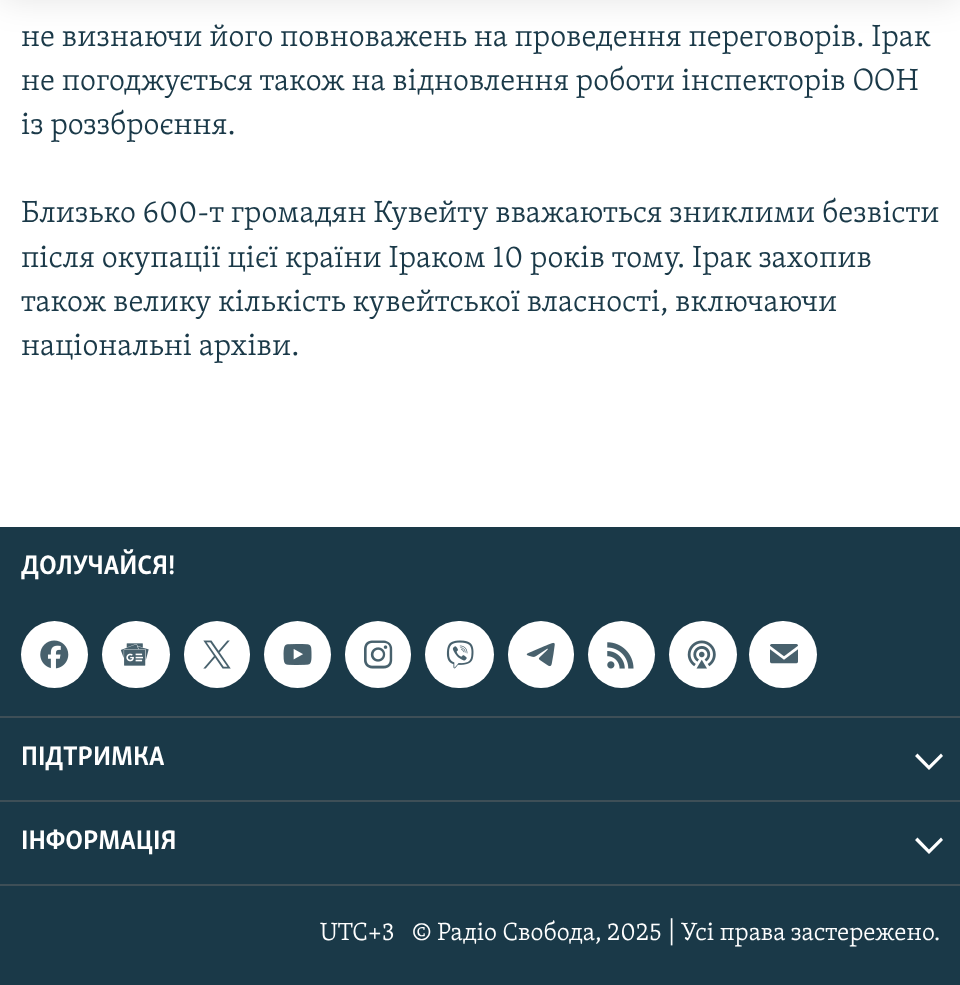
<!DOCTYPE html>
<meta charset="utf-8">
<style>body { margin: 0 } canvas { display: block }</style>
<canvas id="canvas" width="960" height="985"></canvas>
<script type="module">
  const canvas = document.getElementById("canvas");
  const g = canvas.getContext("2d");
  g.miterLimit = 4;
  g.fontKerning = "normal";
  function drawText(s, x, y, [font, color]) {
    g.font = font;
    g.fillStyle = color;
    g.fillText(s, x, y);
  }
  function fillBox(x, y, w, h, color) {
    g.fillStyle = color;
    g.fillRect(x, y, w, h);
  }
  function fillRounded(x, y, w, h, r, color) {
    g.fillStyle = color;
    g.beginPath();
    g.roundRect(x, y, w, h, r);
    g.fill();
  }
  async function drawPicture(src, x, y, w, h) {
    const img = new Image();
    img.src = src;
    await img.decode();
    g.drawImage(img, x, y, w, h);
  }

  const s1 = ["300 31.5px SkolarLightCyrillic", "#1A3948"];
  const s2 = ["bold 27.5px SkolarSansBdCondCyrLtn", "#FFFFFF"];
  const s3 = ["300 25.6px SkolarLightCyrillic", "#FFFFFF"];

  fillBox(0, 0, 960, 985, "#FFFFFF");
  g.fillStyle = "rgba(0, 0, 0, 0.1)";
  g.filter = "blur(17.5px)";
  g.beginPath();
  g.rect(0, -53, 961, 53);
  g.fill();
  g.filter = "none";
  drawText("не визнаючи його повноважень на проведення переговорів. Ірак", 21, 46, s1);
  drawText("не погоджується також на відновлення роботи інспекторів ООН", 21, 90, s1);
  drawText("із роззброєння.", 21, 134, s1);
  drawText("Близько 600-т громадян Кувейту вважаються зниклими безвісти", 21, 222, s1);
  drawText("після окупації цієї країни Іраком 10 років тому. Ірак захопив", 21, 267, s1);
  drawText("також велику кількість кувейтської власності, включаючи", 21, 311, s1);
  drawText("національні архіви.", 21, 355, s1);
  fillBox(0, 527, 960, 458, "#1A3948");
  fillBox(0, 884, 960, 2, "#3E4F57");
  drawText("ДОЛУЧАЙСЯ!", 21, 574, s2);
  g.beginPath();
  g.arc(54.5, 654.5, 33.5, 0, Math.PI * 2);
  g.fill();
  await drawPicture("pic1.png", 40, 640, 29, 29);
  fillRounded(102, 621, 68, 67, 33.5, "#FFFFFF");
  await drawPicture("pic2.png", 120, 643, 29, 23);
  fillRounded(184, 621, 66, 67, 33, "#FFFFFF");
  await drawPicture("pic3.png", 203, 640, 28, 29);
  g.beginPath();
  g.arc(297.5, 654.5, 33.5, 0, Math.PI * 2);
  g.fill();
  await drawPicture("pic4.png", 283, 644, 29, 21);
  fillRounded(345, 621, 66, 67, 33, "#FFFFFF");
  await drawPicture("pic5.png", 364, 640, 29, 29);
  fillRounded(425, 621, 69, 67, 33.5, "#FFFFFF");
  await drawPicture("pic6.png", 446, 640, 28, 29);
  fillRounded(508, 621, 66, 67, 33, "#FFFFFF");
  await drawPicture("pic7.png", 526, 642, 29, 25);
  g.beginPath();
  g.arc(621.5, 654.5, 33.5, 0, Math.PI * 2);
  g.fill();
  await drawPicture("pic8.png", 607, 642, 27, 27);
  fillRounded(669, 621, 68, 67, 33.5, "#FFFFFF");
  await drawPicture("pic9.png", 687, 640, 29, 29);
  fillRounded(749, 621, 68, 67, 33.5, "#FFFFFF");
  await drawPicture("pic10.png", 770, 644, 28, 20);
  fillBox(0, 716, 960, 2, "#3E4F57");
  drawText("ПІДТРИМКА", 21, 765, s2);
  g.beginPath();
  g.moveTo(915, 756);
  g.lineTo(929, 770);
  g.lineTo(943, 756);
  g.lineTo(941, 753.5);
  g.lineTo(929, 765.5);
  g.lineTo(917.5, 753.5);
  g.closePath();
  g.fill();
  fillBox(0, 800, 960, 2, "#3E4F57");
  drawText("ІНФОРМАЦІЯ", 21, 849, s2);
  g.beginPath();
  g.moveTo(915, 840);
  g.lineTo(929, 854);
  g.lineTo(943, 840);
  g.lineTo(941, 837.5);
  g.lineTo(929, 849.5);
  g.lineTo(917.5, 837.5);
  g.closePath();
  g.fill();
  drawText("UTC+3", 320, 940, s3);
  drawText("© Радіо Свобода, 2025 | Усі права застережено.", 412, 940, s3);
</script>
